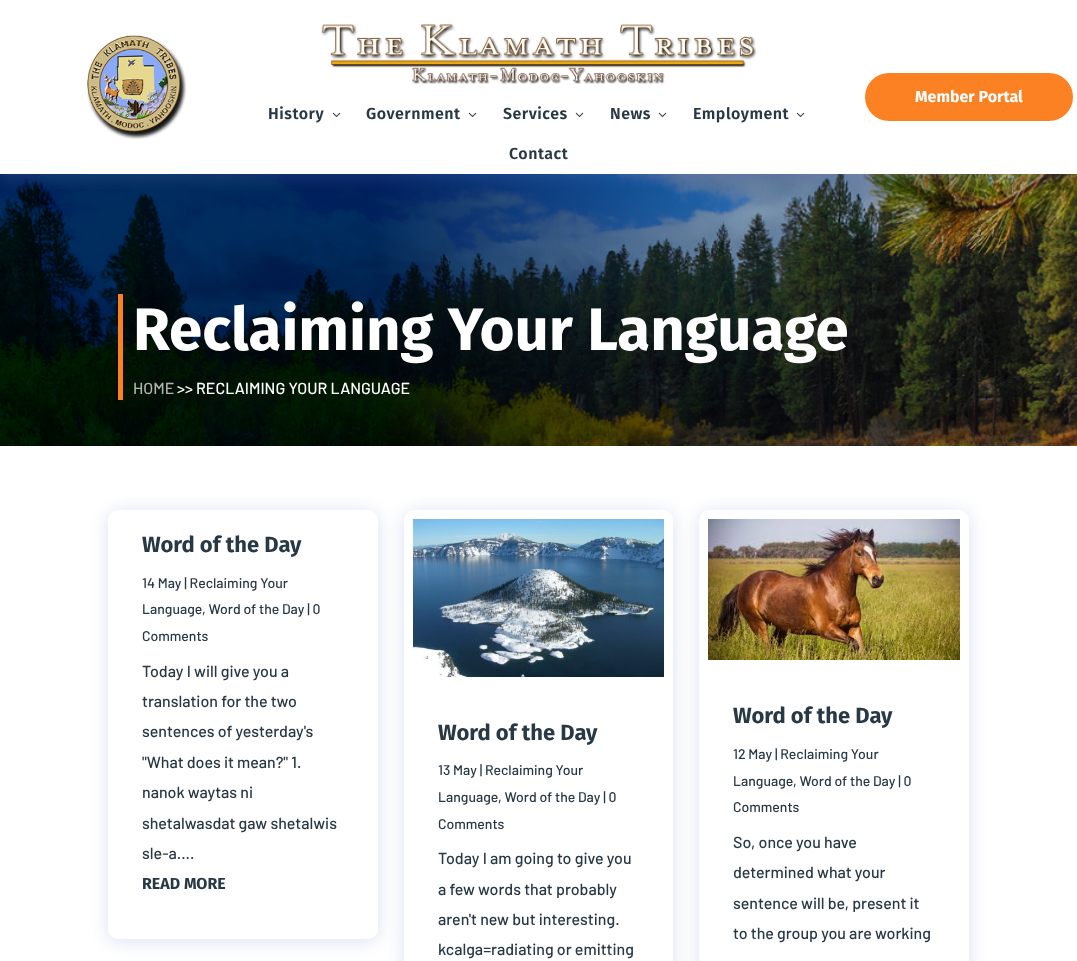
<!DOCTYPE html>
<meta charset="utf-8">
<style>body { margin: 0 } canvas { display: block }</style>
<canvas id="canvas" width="1077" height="961"></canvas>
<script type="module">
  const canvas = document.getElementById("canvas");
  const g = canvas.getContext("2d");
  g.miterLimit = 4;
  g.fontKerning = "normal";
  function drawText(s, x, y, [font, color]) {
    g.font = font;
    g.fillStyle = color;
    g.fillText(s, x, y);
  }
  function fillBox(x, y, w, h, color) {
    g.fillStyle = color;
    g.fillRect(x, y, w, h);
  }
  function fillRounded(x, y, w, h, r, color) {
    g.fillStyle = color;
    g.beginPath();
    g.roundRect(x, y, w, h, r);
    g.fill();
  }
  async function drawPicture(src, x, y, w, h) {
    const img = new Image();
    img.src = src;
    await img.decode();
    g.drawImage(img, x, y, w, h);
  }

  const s1 = ["bold 16px Fira Sans", "#FFFFFF"];
  const s2 = ["600 16px Fira Sans", "#283845"];
  const s3 = ["bold 60px Fira Sans", "#FFFFFF"];
  const s4 = ["500 16px Barlow", "#B0B5B1"];
  const s5 = ["500 16px Barlow", "#FFFFFF"];
  const s6 = ["bold 22px Fira Sans", "#283845"];
  const s7 = ["500 14px Barlow", "#283845"];
  const s8 = ["500 16px Barlow", "#283845"];
  const s9 = ["bold 16px Fira Sans", "#283845"];

  fillBox(0, 0, 1077, 961, "#FFFFFF");
  await drawPicture("pic4.png", 0, 174, 1077, 272);
  g.save();
  g.beginPath();
  g.rect(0, 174, 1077, 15);
  g.clip();
  g.fillStyle = "rgba(110, 130, 208, 0.27)";
  g.filter = "blur(9px)";
  g.beginPath();
  g.rect(0, 2, 1077, 174);
  g.fill();
  g.filter = "none";
  g.restore();
  await drawPicture("pic1.png", 87, 35, 100, 104);
  fillRounded(865, 73, 208, 48, 24, "#FB8122");
  drawText("Member Portal", 915, 102, s1);
  await drawPicture("pic2.png", 321, 24, 436, 60);
  g.letterSpacing = "0.5px";
  drawText("History", 268, 119, s2);
  await drawPicture("pic3.png", 332, 112, 9, 5);
  drawText("Government", 366, 119, s2);
  await drawPicture("pic3.png", 468, 112, 9, 5);
  drawText("Services", 503, 119, s2);
  await drawPicture("pic3.png", 575, 112, 9, 5);
  drawText("News", 610, 119, s2);
  await drawPicture("pic3.png", 658, 112, 9, 5);
  drawText("Employment", 693, 119, s2);
  await drawPicture("pic3.png", 796, 112, 9, 5);
  drawText("Contact", 509, 159, s2);
  fillBox(118, 294, 5, 106, "#FB8122");
  g.letterSpacing = "0px";
  drawText("Reclaiming Your Language", 133, 350, s3);
  drawText("HOME", 133, 394, s4);
  drawText(">> RECLAIMING YOUR LANGUAGE", 177, 394, s5);
  g.fillStyle = "rgba(110, 130, 208, 0.25)";
  g.filter = "blur(9px)";
  g.beginPath();
  g.roundRect(108, 512, 270, 429, 10);
  g.fill();
  g.filter = "none";
  fillRounded(108, 510, 270, 429, 10, "#FFFFFF");
  drawText("Word of the Day", 142, 552, s6);
  drawText("14 May | Reclaiming Your", 142, 588, s7);
  drawText("Language, Word of the Day | 0", 142, 614, s7);
  drawText("Comments", 142, 641, s7);
  drawText("Today I will give you a", 142, 677, s8);
  drawText("translation for the two", 142, 707, s8);
  drawText("sentences of yesterday's", 142, 737, s8);
  drawText("\"What does it mean?\" 1.", 142, 768, s8);
  drawText("nanok waytas ni", 142, 798, s8);
  drawText("shetalwasdat gaw shetalwis", 142, 829, s8);
  drawText("sle-a....", 142, 859, s8);
  drawText("READ MORE", 142, 889, s9);
  g.fillStyle = "rgba(110, 130, 208, 0.25)";
  g.filter = "blur(9px)";
  g.beginPath();
  g.roundRect(404, 512, 269, 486, 10);
  g.fill();
  g.filter = "none";
  fillRounded(404, 510, 269, 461, 10, "#FFFFFF");
  await drawPicture("pic5.png", 413, 519, 251, 158);
  drawText("Word of the Day", 438, 740, s6);
  drawText("13 May | Reclaiming Your", 438, 775, s7);
  drawText("Language, Word of the Day | 0", 438, 802, s7);
  drawText("Comments", 438, 829, s7);
  drawText("Today I am going to give you", 438, 864, s8);
  drawText("a few words that probably", 438, 895, s8);
  drawText("aren't new but interesting.", 438, 925, s8);
  drawText("kcalga=radiating or emitting", 438, 955, s8);
  g.fillStyle = "rgba(110, 130, 208, 0.25)";
  g.filter = "blur(9px)";
  g.beginPath();
  g.roundRect(699, 512, 270, 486, 10);
  g.fill();
  g.filter = "none";
  fillRounded(699, 510, 270, 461, 10, "#FFFFFF");
  await drawPicture("pic6.png", 708, 519, 252, 141);
  drawText("Word of the Day", 733, 723, s6);
  drawText("12 May | Reclaiming Your", 733, 759, s7);
  drawText("Language, Word of the Day | 0", 733, 786, s7);
  drawText("Comments", 733, 812, s7);
  drawText("So, once you have", 733, 848, s8);
  drawText("determined what your", 733, 878, s8);
  drawText("sentence will be, present it", 733, 909, s8);
  drawText("to the group you are working", 733, 939, s8);
</script>
